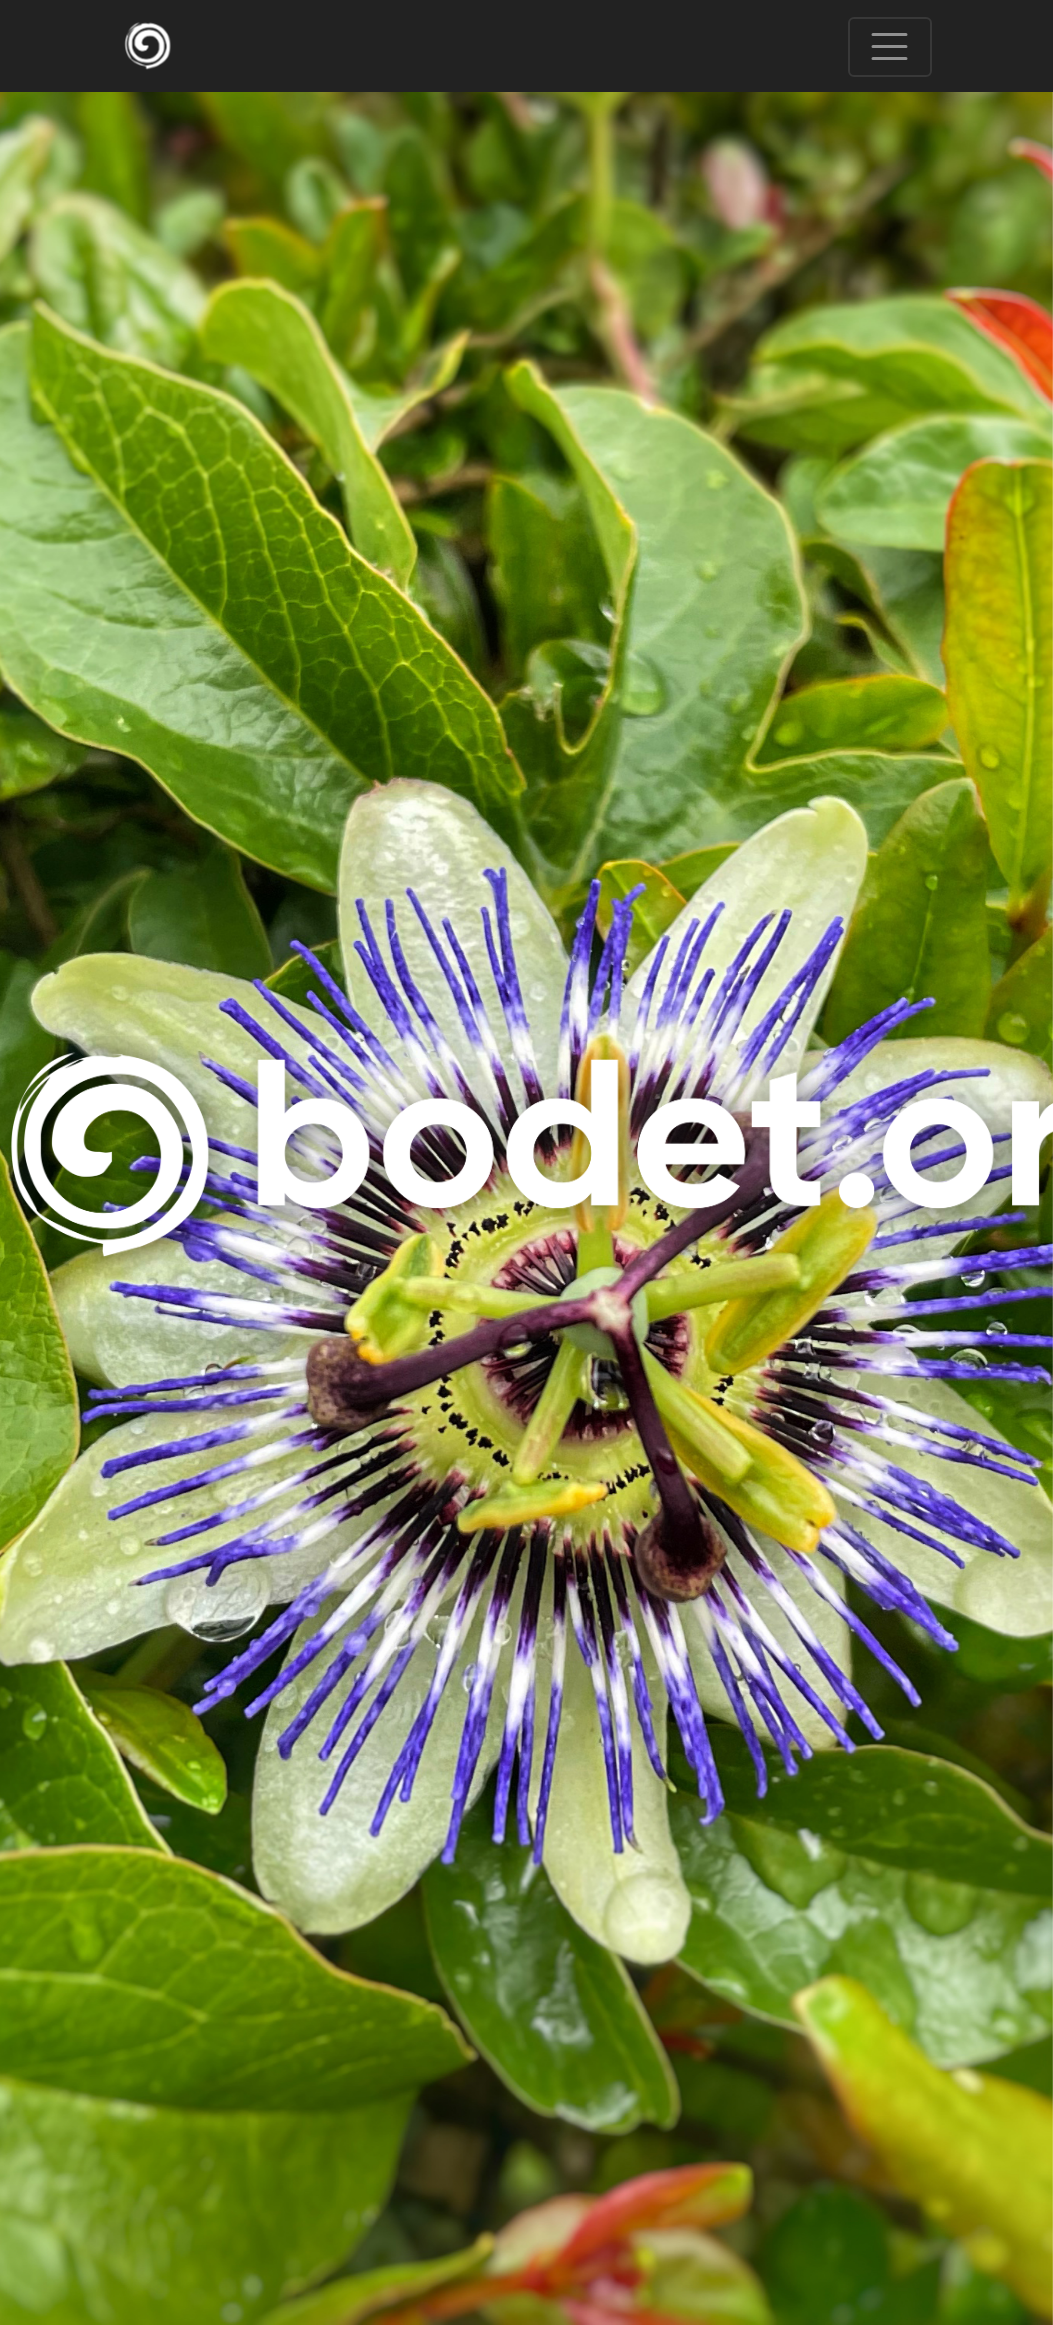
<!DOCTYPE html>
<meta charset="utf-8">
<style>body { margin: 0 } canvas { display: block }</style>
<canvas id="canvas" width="1053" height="2325"></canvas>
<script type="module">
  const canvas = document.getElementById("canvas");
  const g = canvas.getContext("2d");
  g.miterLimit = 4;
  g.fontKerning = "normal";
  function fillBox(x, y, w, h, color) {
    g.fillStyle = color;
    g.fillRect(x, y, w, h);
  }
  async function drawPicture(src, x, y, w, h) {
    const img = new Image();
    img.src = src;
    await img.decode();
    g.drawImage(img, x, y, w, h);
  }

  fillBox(0, 0, 1053, 2325, "#FFFFFF");
  await drawPicture("pic1.png", 0, 92, 1053, 2233);
  fillBox(0, 0, 1053, 92, "#222222");
  await drawPicture("pic2.png", 124, 22, 47, 48);
  g.beginPath();
  g.roundRect(849, 18, 82, 58, 5);
  g.strokeStyle = "#383838";
  g.lineWidth = 2;
  g.stroke();
  g.beginPath();
  g.moveTo(873, 34.5);
  g.lineTo(906, 34.5);
  g.moveTo(873, 46.5);
  g.lineTo(906, 46.5);
  g.moveTo(873, 58.5);
  g.lineTo(906, 58.5);
  g.strokeStyle = "#919191";
  g.lineWidth = 3;
  g.lineCap = "round";
  g.stroke();
  await drawPicture("pic3.png", 0, 1036, 1053, 244);
</script>
